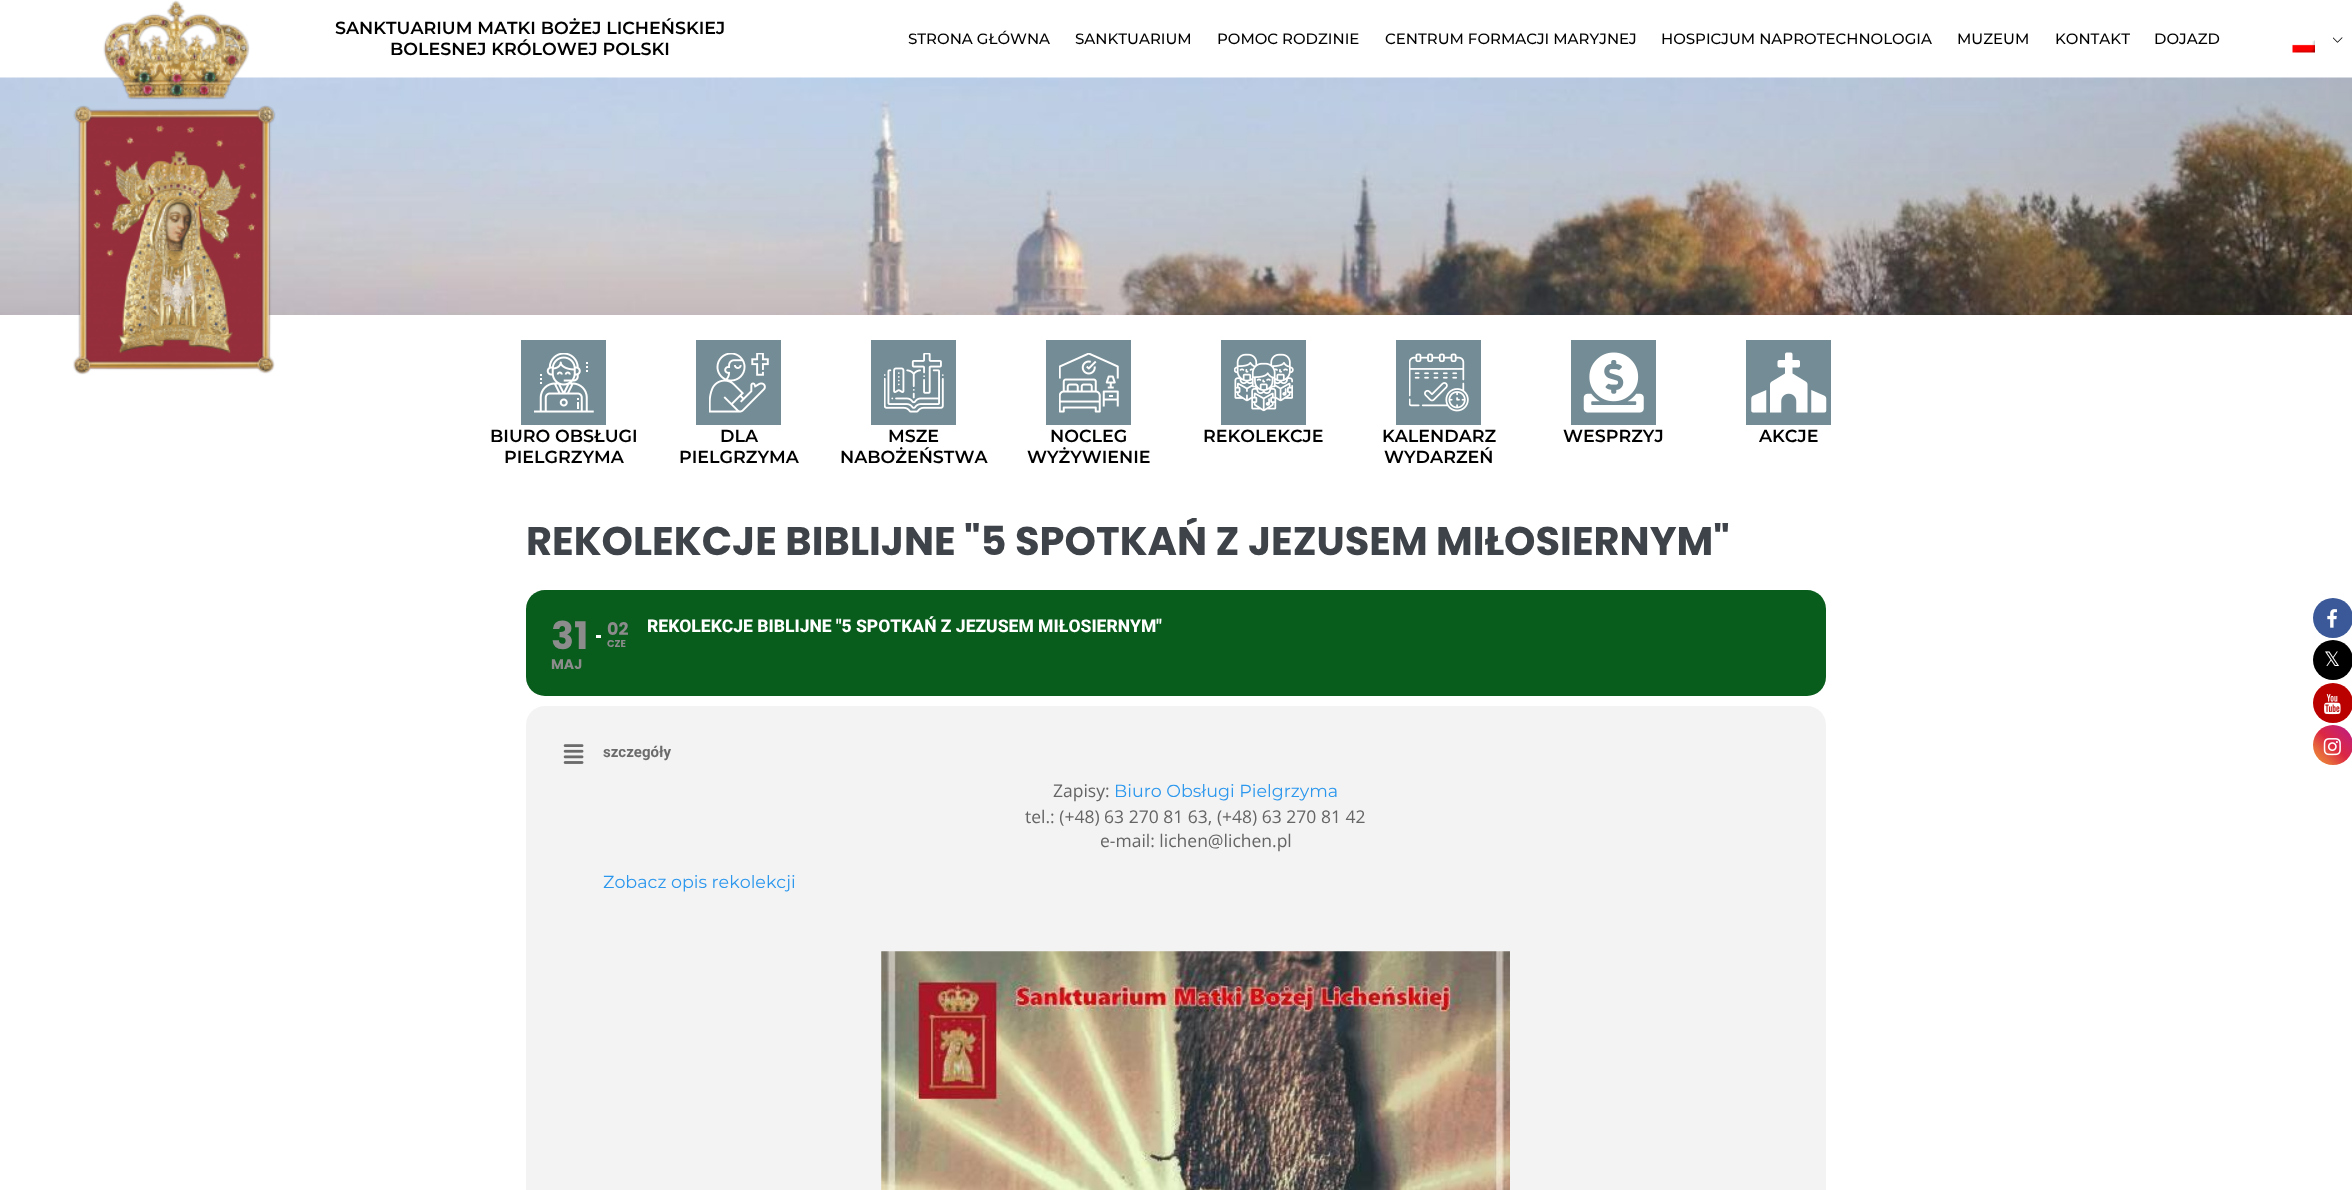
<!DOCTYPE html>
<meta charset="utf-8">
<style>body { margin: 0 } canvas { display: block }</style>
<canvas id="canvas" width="2352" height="1190"></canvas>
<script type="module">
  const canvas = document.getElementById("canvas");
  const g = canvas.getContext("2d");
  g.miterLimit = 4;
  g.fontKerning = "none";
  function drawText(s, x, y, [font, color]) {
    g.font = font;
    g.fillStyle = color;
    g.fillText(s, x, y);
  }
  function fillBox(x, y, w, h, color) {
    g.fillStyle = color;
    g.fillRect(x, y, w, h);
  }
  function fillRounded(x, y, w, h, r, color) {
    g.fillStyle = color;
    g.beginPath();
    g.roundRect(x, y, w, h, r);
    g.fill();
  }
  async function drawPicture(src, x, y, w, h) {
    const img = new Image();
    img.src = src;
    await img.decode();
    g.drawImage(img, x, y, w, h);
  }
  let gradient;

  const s1 = ["600 17.5px Montserrat", "#000000"];
  const s2 = ["500 15px Montserrat", "#000000"];
  const s3 = ["bold 40px Poppins", "#3E4349"];
  const s4 = ["bold 38px Poppins", "#8C8C8C"];
  const s5 = ["bold 14px Poppins", "#8C8C8C"];
  const s6 = ["bold 17.5px Poppins", "#8C8C8C"];
  const s7 = ["bold 10px Poppins", "#8C8C8C"];
  const s8 = ["800 17.5px Roboto", "#FFFFFF"];
  const s9 = ["bold 15px Roboto", "#6B6B6B"];
  const s10 = ["17.5px Open Sans", "#656565"];
  const s11 = ["17.5px Montserrat", "#2B97ED"];
  const s12 = ["20px DejaVu Sans", "#FFFFFF"];

  fillBox(0, 0, 2352, 1190, "#FFFFFF");
  await drawPicture("pic4.png", 0, 77, 2352, 238);
  await drawPicture("pic1.png", 73, 0, 203, 375);
  drawText("SANKTUARIUM MATKI BOŻEJ LICHEŃSKIEJ", 335, 34, s1);
  drawText("BOLESNEJ KRÓLOWEJ POLSKI", 390, 55, s1);
  drawText("STRONA GŁÓWNA", 908, 44, s2);
  drawText("SANKTUARIUM", 1075, 44, s2);
  drawText("POMOC RODZINIE", 1217, 44, s2);
  drawText("CENTRUM FORMACJI MARYJNEJ", 1385, 44, s2);
  drawText("HOSPICJUM NAPROTECHNOLOGIA", 1661, 44, s2);
  drawText("MUZEUM", 1957, 44, s2);
  drawText("KONTAKT", 2055, 44, s2);
  drawText("DOJAZD", 2154, 44, s2);
  await drawPicture("pic2.png", 2333, 37, 10, 6);
  await drawPicture("pic3.png", 2292, 40, 23, 13);
  fillBox(521, 340, 85, 85, "#748C95");
  await drawPicture("pic5.png", 534, 353, 60, 60);
  drawText("BIURO OBSŁUGI", 490, 442, s1);
  drawText("PIELGRZYMA", 504, 463, s1);
  fillBox(696, 340, 85, 85, "#748C95");
  await drawPicture("pic6.png", 709, 353, 60, 60);
  drawText("DLA", 720, 442, s1);
  drawText("PIELGRZYMA", 679, 463, s1);
  fillBox(871, 340, 85, 85, "#748C95");
  await drawPicture("pic7.png", 884, 353, 60, 60);
  drawText("MSZE", 888, 442, s1);
  drawText("NABOŻEŃSTWA", 840, 463, s1);
  fillBox(1046, 340, 85, 85, "#748C95");
  await drawPicture("pic8.png", 1059, 353, 60, 60);
  drawText("NOCLEG", 1050, 442, s1);
  drawText("WYŻYWIENIE", 1027, 463, s1);
  fillBox(1221, 340, 85, 85, "#748C95");
  await drawPicture("pic9.png", 1234, 353, 60, 59);
  drawText("REKOLEKCJE", 1203, 442, s1);
  fillBox(1396, 340, 85, 85, "#748C95");
  await drawPicture("pic10.png", 1409, 353, 60, 59);
  drawText("KALENDARZ", 1382, 442, s1);
  drawText("WYDARZEŃ", 1384, 463, s1);
  fillBox(1571, 340, 85, 85, "#748C95");
  await drawPicture("pic11.png", 1583, 352, 61, 61);
  drawText("WESPRZYJ", 1563, 442, s1);
  fillBox(1746, 340, 85, 85, "#748C95");
  await drawPicture("pic12.png", 1751, 352, 76, 61);
  drawText("AKCJE", 1759, 442, s1);
  g.save();
  g.beginPath();
  g.roundRect(526, 518, 1300, 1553, 6);
  g.clip();
  drawText("REKOLEKCJE BIBLIJNE \"5 SPOTKAŃ Z JEZUSEM MIŁOSIERNYM\"", 526, 555, s3);
  g.restore();
  fillRounded(526, 590, 1300, 106, 19, "#085C1C");
  drawText("31", 551, 649, s4);
  drawText("MAJ", 551, 669, s5);
  drawText("02", 607, 635, s6);
  fillBox(596, 635, 5, 3, "#FFFFFF");
  drawText("CZE", 607, 647, s7);
  drawText("REKOLEKCJE BIBLIJNE \"5 SPOTKAŃ Z JEZUSEM MIŁOSIERNYM\"", 647, 632, s8);
  fillRounded(526, 706, 1300, 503, 19, "#F3F3F3");
  await drawPicture("pic13.png", 563, 744, 21, 20);
  drawText("szczegóły", 603, 757, s9);
  drawText("Zapisy:", 1053, 797, s10);
  drawText("Biuro Obsługi Pielgrzyma", 1114, 797, s11);
  drawText("tel.: (+48) 63 270 81 63, (+48) 63 270 81 42", 1025, 823, s10);
  drawText("e-mail: lichen@lichen.pl", 1100, 847, s10);
  drawText("Zobacz opis rekolekcji", 603, 888, s11);
  await drawPicture("pic14.png", 881, 951, 629, 239);
  g.fillStyle = "#3B5998";
  g.beginPath();
  g.arc(2333, 618, 20, 0, Math.PI * 2);
  g.fill();
  await drawPicture("pic15.png", 2327, 609, 10, 19);
  g.fillStyle = "#000000";
  g.beginPath();
  g.arc(2333, 660, 20, 0, Math.PI * 2);
  g.fill();
  drawText("𝕏", 2324, 666, s12);
  g.fillStyle = "#BB0000";
  g.beginPath();
  g.arc(2333, 703, 20, 0, Math.PI * 2);
  g.fill();
  await drawPicture("pic16.png", 2324, 694, 17, 21);
  gradient = g.createLinearGradient(2313, 765, 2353, 725);
  gradient.addColorStop(0, "#F09433");
  gradient.addColorStop(0.25, "#E6683C");
  gradient.addColorStop(0.5, "#DC2743");
  gradient.addColorStop(0.75, "#CC2366");
  gradient.addColorStop(1, "#BC1888");
  g.fillStyle = gradient;
  g.beginPath();
  g.arc(2333, 745, 20, 0, Math.PI * 2);
  g.fill();
  await drawPicture("pic17.png", 2323, 738, 18, 18);
</script>
